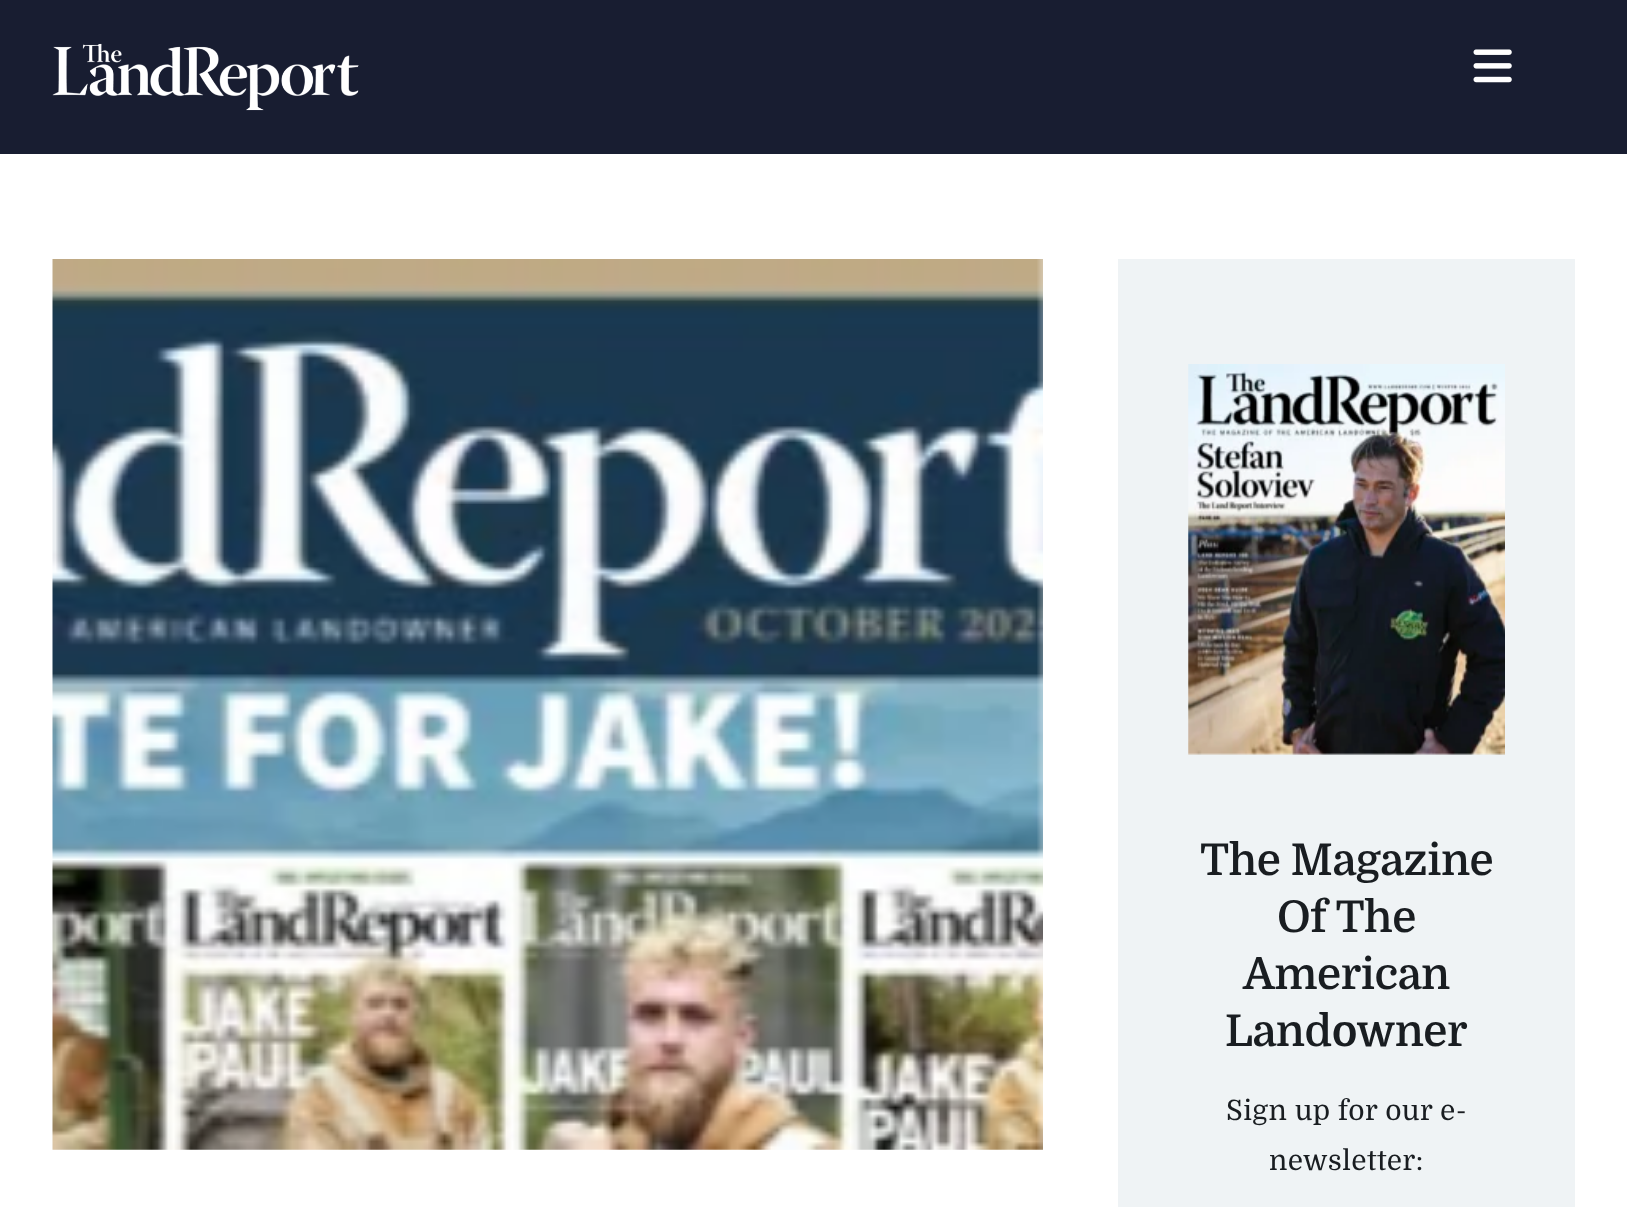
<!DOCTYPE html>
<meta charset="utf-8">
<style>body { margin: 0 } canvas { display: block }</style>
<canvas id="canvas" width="1627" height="1207"></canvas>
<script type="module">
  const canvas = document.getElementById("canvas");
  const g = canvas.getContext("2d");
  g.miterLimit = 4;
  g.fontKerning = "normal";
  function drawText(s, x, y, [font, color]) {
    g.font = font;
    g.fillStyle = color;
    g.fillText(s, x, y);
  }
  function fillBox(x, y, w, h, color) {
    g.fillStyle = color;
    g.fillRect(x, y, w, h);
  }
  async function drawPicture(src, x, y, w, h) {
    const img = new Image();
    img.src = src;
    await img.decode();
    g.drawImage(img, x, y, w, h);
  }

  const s1 = ["600 43.75px Domine", "#191D21"];
  const s2 = ["28px Domine", "#191D21"];

  fillBox(0, 0, 1627, 1207, "#FFFFFF");
  fillBox(0, 0, 1627, 154, "#181D31");
  await drawPicture("pic1.png", 52, 43, 307, 68);
  await drawPicture("pic2.png", 1473, 49, 39, 34);
  await drawPicture("pic3.png", 52, 259, 991, 891);
  fillBox(1118, 259, 457, 948, "#EFF3F5");
  await drawPicture("pic4.png", 1188, 364, 317, 391);
  g.letterSpacing = "-0.5px";
  drawText("The Magazine", 1200, 875, s1);
  drawText("Of The", 1277, 932, s1);
  drawText("American", 1243, 989, s1);
  drawText("Landowner", 1225, 1046, s1);
  g.letterSpacing = "0.4px";
  drawText("Sign up for our e-", 1226, 1120, s2);
  drawText("newsletter:", 1269, 1170, s2);
</script>
